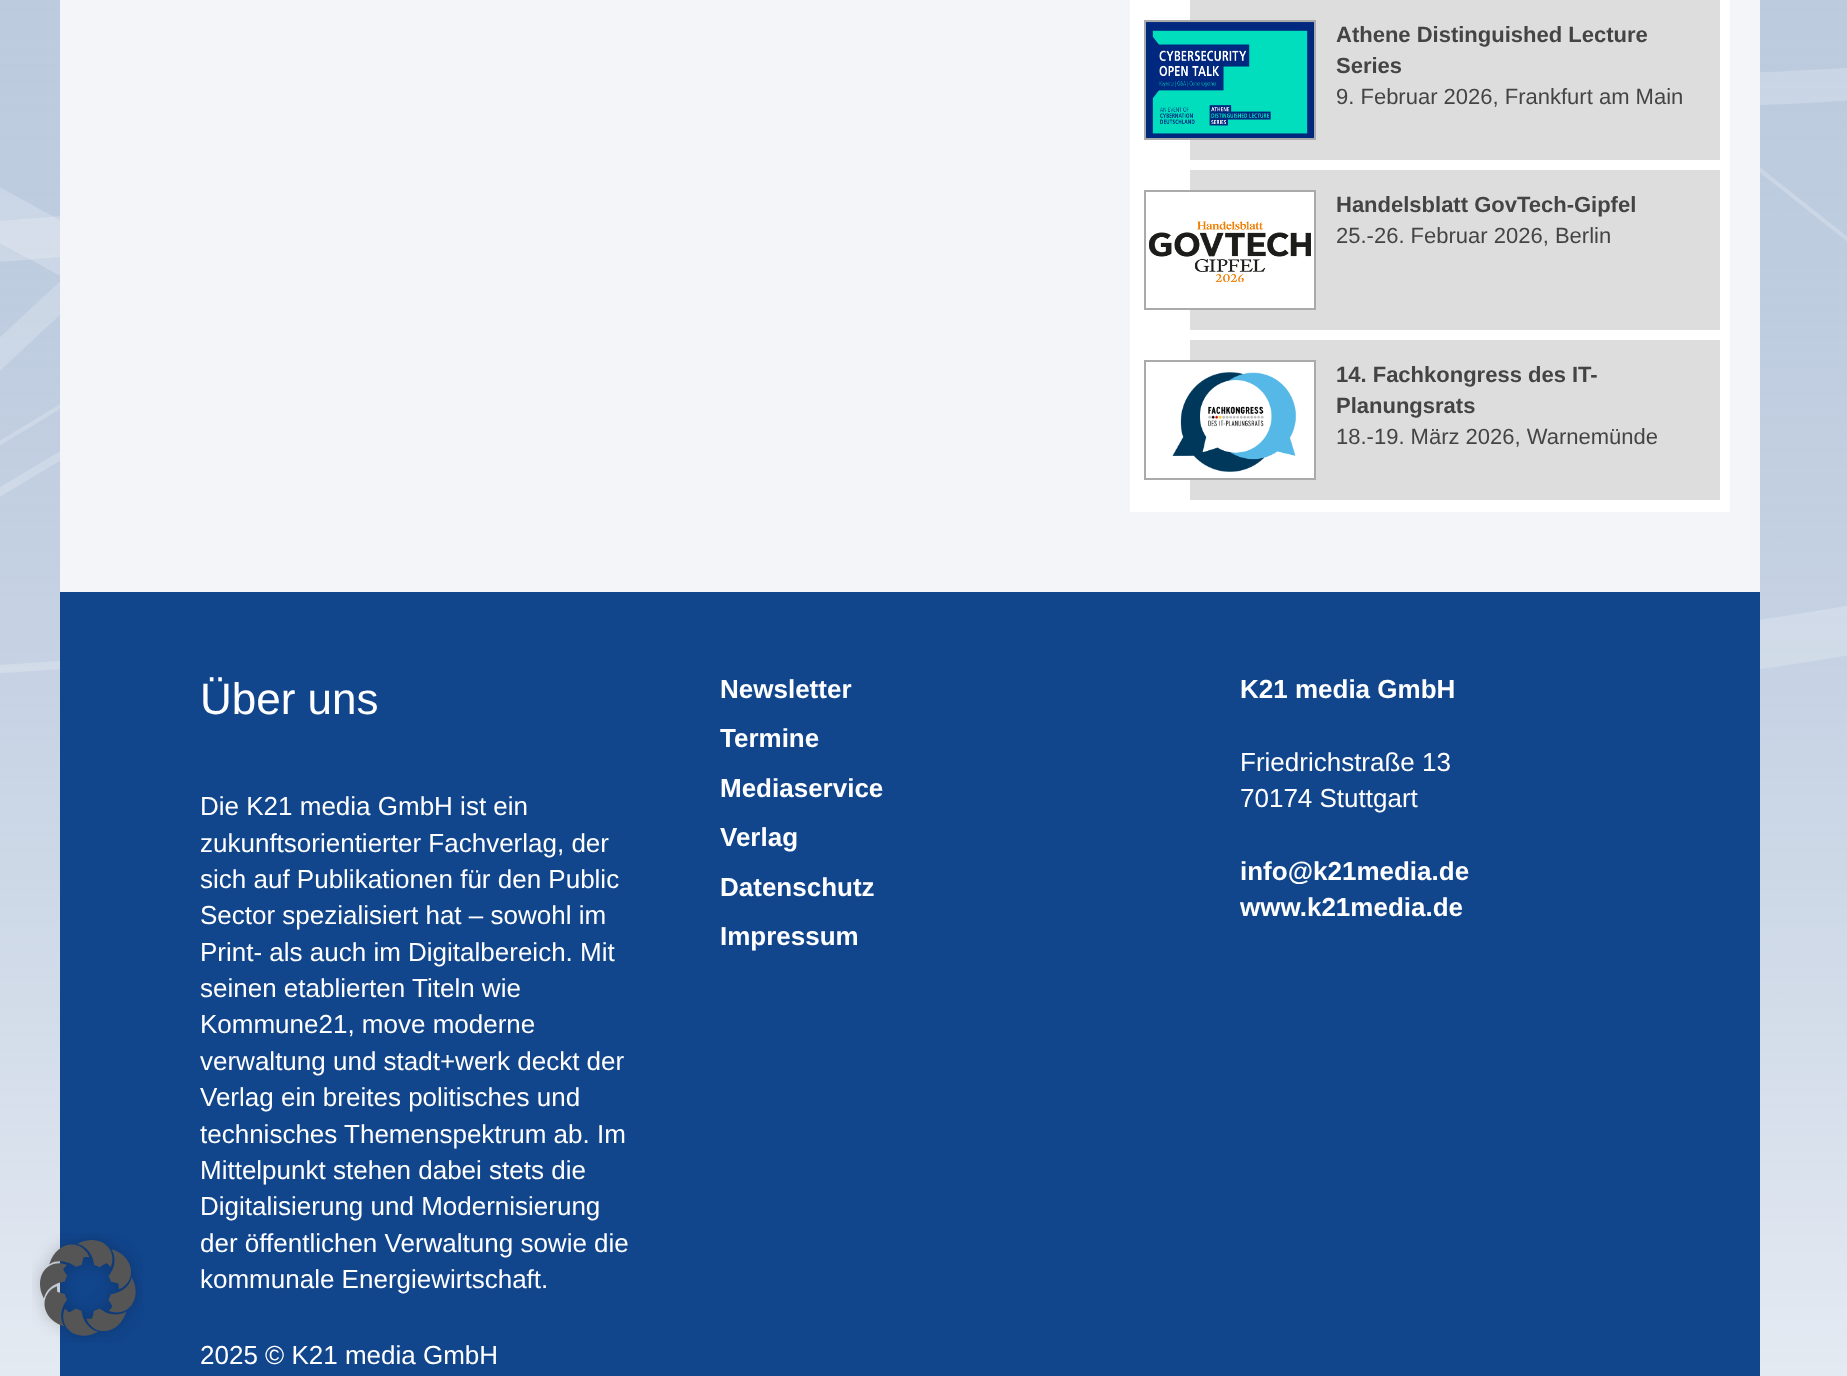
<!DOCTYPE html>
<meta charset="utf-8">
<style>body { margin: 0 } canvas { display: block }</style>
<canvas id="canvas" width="1847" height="1376"></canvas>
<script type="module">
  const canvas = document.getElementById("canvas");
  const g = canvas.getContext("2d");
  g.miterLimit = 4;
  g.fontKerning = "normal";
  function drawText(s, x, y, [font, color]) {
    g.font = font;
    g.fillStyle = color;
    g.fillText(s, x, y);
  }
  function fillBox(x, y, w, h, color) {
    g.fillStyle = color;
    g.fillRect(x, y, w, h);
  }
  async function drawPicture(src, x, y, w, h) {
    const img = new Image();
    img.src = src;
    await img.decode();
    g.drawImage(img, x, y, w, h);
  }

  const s1 = ["bold 22px Liberation Sans", "#444444"];
  const s2 = ["22px Liberation Sans", "#444444"];
  const s3 = ["44px Liberation Sans", "#FFFFFF"];
  const s4 = ["26px Liberation Sans", "#FFFFFF"];
  const s5 = ["bold 26px Liberation Sans", "#FFFFFF"];

  fillBox(0, 0, 1847, 1376, "#FFFFFF");
  await drawPicture("pic1.png", 0, 0, 1847, 1376);
  fillBox(60, 0, 1700, 592, "#F3F5F9");
  fillBox(1130, 0, 600, 512, "#FFFFFF");
  fillBox(1190, 0, 530, 160, "#DDDDDD");
  g.strokeStyle = "#AAAAAA";
  g.lineWidth = 2;
  g.strokeRect(1145, 21, 170, 118);
  await drawPicture("pic2.png", 1146, 22, 168, 116);
  drawText("Athene Distinguished Lecture", 1336, 42, s1);
  drawText("Series", 1336, 73, s1);
  drawText("9. Februar 2026, Frankfurt am Main", 1336, 104, s2);
  fillBox(1190, 170, 530, 160, "#DDDDDD");
  g.strokeRect(1145, 191, 170, 118);
  fillBox(1190, 192, 124, 116, "#FFFFFF");
  await drawPicture("pic3.png", 1149, 219, 162, 63);
  drawText("Handelsblatt GovTech-Gipfel", 1336, 212, s1);
  drawText("25.-26. Februar 2026, Berlin", 1336, 243, s2);
  fillBox(1190, 340, 530, 160, "#DDDDDD");
  g.strokeRect(1145, 361, 170, 118);
  fillBox(1190, 362, 124, 116, "#FFFFFF");
  await drawPicture("pic4.png", 1172, 372, 125, 100);
  drawText("14. Fachkongress des IT-", 1336, 382, s1);
  drawText("Planungsrats", 1336, 413, s1);
  drawText("18.-19. März 2026, Warnemünde", 1336, 444, s2);
  fillBox(60, 592, 1700, 784, "#11458C");
  await drawPicture("pic5.png", 32, 1233, 111, 110);
  drawText("Über uns", 200, 714, s3);
  drawText("Die K21 media GmbH ist ein", 200, 815, s4);
  drawText("zukunftsorientierter Fachverlag, der", 200, 852, s4);
  drawText("sich auf Publikationen für den Public", 200, 888, s4);
  drawText("Sector spezialisiert hat – sowohl im", 200, 924, s4);
  drawText("Print- als auch im Digitalbereich. Mit", 200, 961, s4);
  drawText("seinen etablierten Titeln wie", 200, 997, s4);
  drawText("Kommune21, move moderne", 200, 1033, s4);
  drawText("verwaltung und stadt+werk deckt der", 200, 1070, s4);
  drawText("Verlag ein breites politisches und", 200, 1106, s4);
  drawText("technisches Themenspektrum ab. Im", 200, 1143, s4);
  drawText("Mittelpunkt stehen dabei stets die", 200, 1179, s4);
  drawText("Digitalisierung und Modernisierung", 200, 1215, s4);
  drawText("der öffentlichen Verwaltung sowie die", 200, 1252, s4);
  drawText("kommunale Energiewirtschaft.", 200, 1288, s4);
  drawText("Newsletter", 720, 698, s5);
  drawText("Termine", 720, 747, s5);
  drawText("Mediaservice", 720, 797, s5);
  drawText("Verlag", 720, 846, s5);
  drawText("Datenschutz", 720, 896, s5);
  drawText("Impressum", 720, 945, s5);
  drawText("K21 media GmbH", 1240, 698, s5);
  drawText("Friedrichstraße 13", 1240, 771, s4);
  drawText("70174 Stuttgart", 1240, 807, s4);
  drawText("info@k21media.de", 1240, 880, s5);
  drawText("www.k21media.de", 1240, 916, s5);
  drawText("2025 © K21 media GmbH", 200, 1364, s4);
</script>
